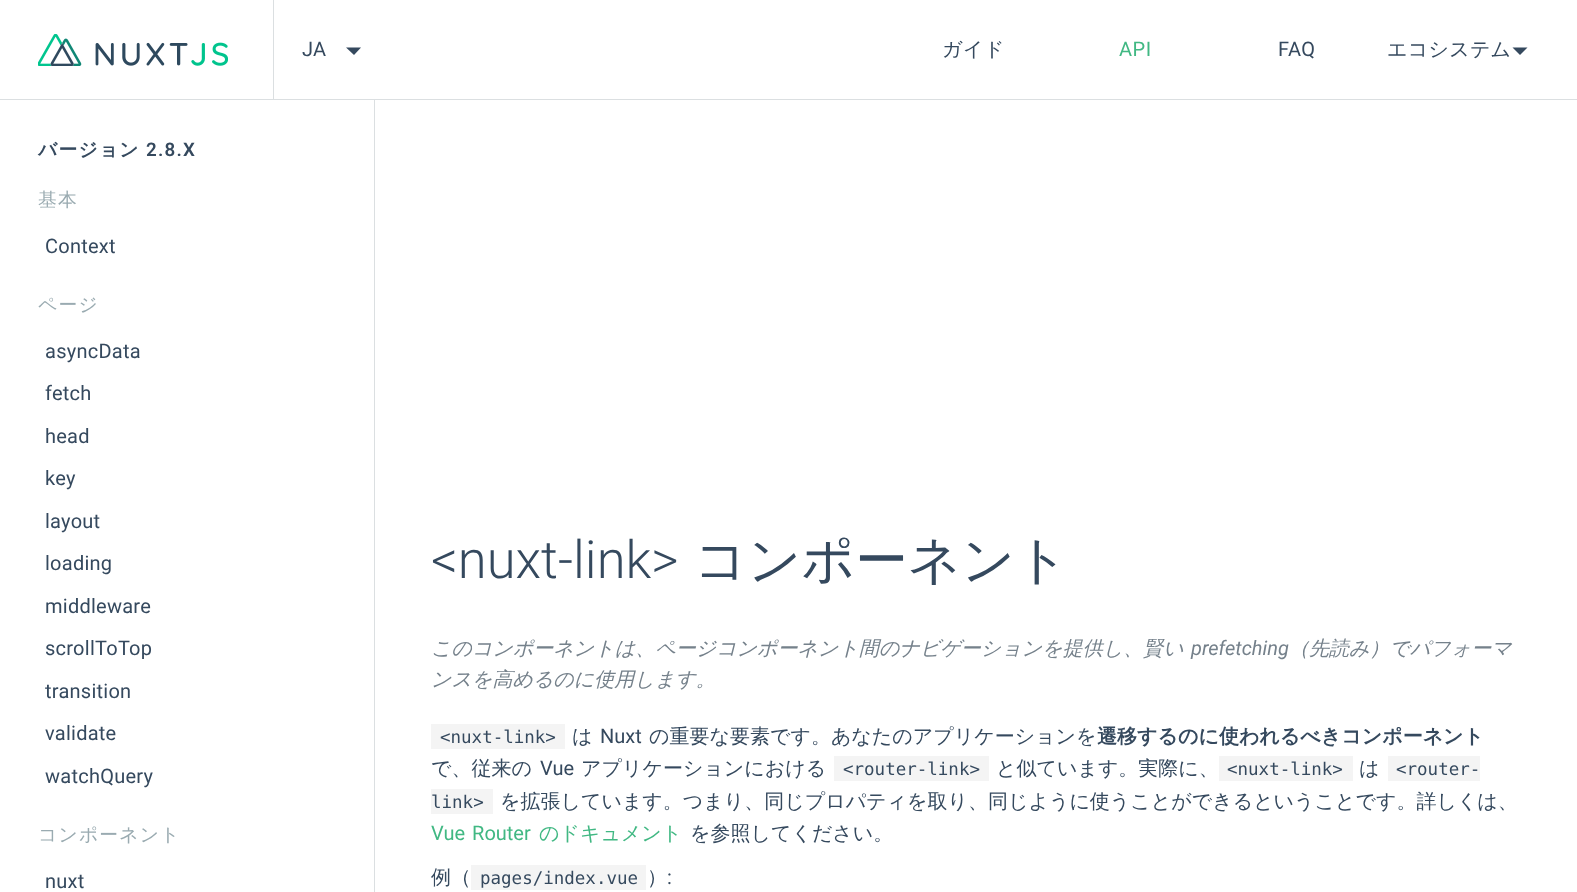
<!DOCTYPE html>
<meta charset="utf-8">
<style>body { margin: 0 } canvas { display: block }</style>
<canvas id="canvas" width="1577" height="892"></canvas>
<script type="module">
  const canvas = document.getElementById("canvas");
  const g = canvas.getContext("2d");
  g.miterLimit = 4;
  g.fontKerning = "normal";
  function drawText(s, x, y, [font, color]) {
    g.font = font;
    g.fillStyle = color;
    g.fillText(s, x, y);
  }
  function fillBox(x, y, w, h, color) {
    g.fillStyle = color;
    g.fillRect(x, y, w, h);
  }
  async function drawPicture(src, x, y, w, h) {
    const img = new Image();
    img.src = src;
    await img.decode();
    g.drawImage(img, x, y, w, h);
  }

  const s1 = ["20px Roboto", "#35495E"];
  const s2 = ["500 20px WenQuanYi Zen Hei", "#35495E"];
  const s3 = ["20px Roboto", "#41B883"];
  const s4 = ["bold 18.75px WenQuanYi Zen Hei", "#35495E"];
  const s5 = ["600 18.75px Roboto", "#35495E"];
  const s6 = ["500 18.75px WenQuanYi Zen Hei", "#9AABB1"];
  const s7 = ["300 52.5px Roboto", "#35495E"];
  const s8 = ["500 52.5px WenQuanYi Zen Hei", "#35495E"];
  const s9 = ["italic 500 20px WenQuanYi Zen Hei", "#75818B"];
  const s10 = ["italic 20px Roboto", "#75818B"];
  const s11 = ["17.5px DejaVu Sans Mono", "#35495E"];
  const s12 = ["bold 20px WenQuanYi Zen Hei", "#35495E"];
  const s13 = ["500 20px WenQuanYi Zen Hei", "#41B883"];

  fillBox(0, 0, 1577, 892, "#FFFFFF");
  fillBox(0, 99, 1577, 1, "#DBDFE1");
  fillBox(273, 0, 1, 99, "#DBDFE1");
  await drawPicture("pic1.png", 38, 34, 190, 32);
  g.letterSpacing = "0.25px";
  drawText("JA", 302, 56, s1);
  g.beginPath();
  g.moveTo(346, 47.5);
  g.lineTo(361, 47.5);
  g.lineTo(354, 55);
  g.closePath();
  g.fill();
  g.letterSpacing = "0.5px";
  drawText("ガイド", 942, 56, s2);
  drawText("API", 1119, 56, s3);
  drawText("FAQ", 1278, 56, s1);
  g.letterSpacing = "0.25px";
  drawText("エコシステム", 1387, 56, s2);
  g.beginPath();
  g.moveTo(1512.5, 47.5);
  g.lineTo(1527.5, 47.5);
  g.lineTo(1520, 55);
  g.closePath();
  g.fill();
  fillBox(374, 100, 1, 792, "#DBDFE1");
  g.letterSpacing = "1.25px";
  drawText("バージョン", 38, 156, s4);
  drawText("2.8.X", 146, 156, s5);
  drawText("基本", 38, 206, s6);
  g.letterSpacing = "0.25px";
  drawText("Context", 45, 253, s1);
  g.letterSpacing = "1.25px";
  drawText("ページ", 38, 311, s6);
  g.letterSpacing = "0.25px";
  drawText("asyncData", 45, 358, s1);
  drawText("fetch", 45, 400, s1);
  drawText("head", 45, 443, s1);
  drawText("key", 45, 485, s1);
  drawText("layout", 45, 528, s1);
  drawText("loading", 45, 570, s1);
  drawText("middleware", 45, 613, s1);
  drawText("scrollToTop", 45, 655, s1);
  drawText("transition", 45, 698, s1);
  drawText("validate", 45, 740, s1);
  drawText("watchQuery", 45, 783, s1);
  g.letterSpacing = "1.25px";
  drawText("コンポーネント", 38, 841, s6);
  g.letterSpacing = "0.25px";
  drawText("nuxt", 45, 888, s1);
  g.letterSpacing = "0px";
  drawText("<nuxt-link>", 431, 578, s7);
  drawText("コンポーネント", 694, 578, s8);
  drawText("このコンポーネントは、ページコンポーネント間のナビゲーションを提供し、賢い", 431, 655, s9);
  drawText("prefetching", 1191, 655, s10);
  drawText("（先読み）でパフォーマ", 1289, 655, s9);
  drawText("ンスを高めるのに使用します。", 431, 686, s9);
  fillBox(431, 724, 134, 25, "#F4F4F4");
  drawText("<nuxt-link>", 440, 743, s11);
  drawText("は", 572, 743, s2);
  drawText("Nuxt", 600, 743, s1);
  drawText("の重要な要素です。あなたのアプリケーションを", 649, 743, s2);
  drawText("遷移するのに使われるべきコンポーネント", 1097, 743, s12);
  drawText("で、従来の", 431, 775, s2);
  drawText("Vue", 540, 775, s1);
  drawText("アプリケーションにおける", 581, 775, s2);
  fillBox(834, 756, 155, 25, "#F4F4F4");
  drawText("<router-link>", 843, 775, s11);
  drawText("と似ています。実際に、", 996, 775, s2);
  fillBox(1219, 756, 134, 25, "#F4F4F4");
  drawText("<nuxt-link>", 1227, 775, s11);
  drawText("は", 1359, 775, s2);
  fillBox(1388, 756, 92, 25, "#F4F4F4");
  drawText("<router-", 1396, 775, s11);
  fillBox(431, 789, 62, 25, "#F4F4F4");
  drawText("link>", 431, 808, s11);
  drawText("を拡張しています。つまり、同じプロパティを取り、同じように使うことができるということです。詳しくは、", 500, 808, s2);
  g.wordSpacing = "2px";
  drawText("Vue Router", 431, 840, s3);
  g.wordSpacing = "0px";
  drawText("のドキュメント", 539, 840, s13);
  drawText("を参照してください。", 690, 840, s2);
  drawText("例（", 431, 884, s2);
  fillBox(471, 865, 175, 25, "#F4F4F4");
  drawText("pages/index.vue", 480, 884, s11);
  drawText("）", 647, 884, s2);
  drawText(":", 667, 884, s1);
</script>
